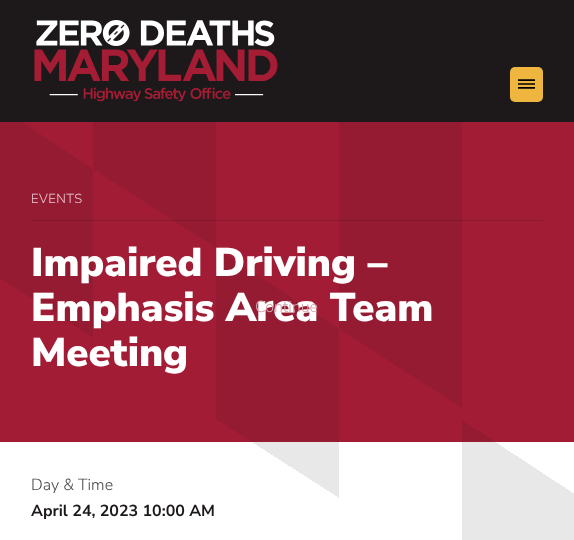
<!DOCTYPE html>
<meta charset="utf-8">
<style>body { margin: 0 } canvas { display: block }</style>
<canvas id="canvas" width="574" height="540"></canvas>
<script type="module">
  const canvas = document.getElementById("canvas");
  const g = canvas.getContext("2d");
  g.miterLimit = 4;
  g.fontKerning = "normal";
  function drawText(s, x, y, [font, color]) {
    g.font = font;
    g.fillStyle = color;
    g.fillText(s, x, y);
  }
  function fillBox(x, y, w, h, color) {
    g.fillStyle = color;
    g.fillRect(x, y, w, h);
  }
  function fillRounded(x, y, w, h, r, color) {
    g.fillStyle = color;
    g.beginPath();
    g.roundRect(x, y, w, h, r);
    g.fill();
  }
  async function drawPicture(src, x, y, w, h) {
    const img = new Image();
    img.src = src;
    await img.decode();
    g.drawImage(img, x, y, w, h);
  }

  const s1 = ["300 16px Nunito Sans", "#4A4748"];
  const s2 = ["bold 16px Nunito Sans", "#1D191A"];
  const s3 = ["300 13px Nunito Sans", "#EAD1D6"];
  const s4 = ["900 40px Nunito Sans", "#FFFFFF"];
  const s5 = ["300 16px Nunito Sans", "#D5A3AD"];

  fillBox(0, 0, 574, 540, "#FFFFFF");
  fillBox(0, 0, 574, 122, "#1D191A");
  await drawPicture("pic1.png", 34, 20, 244, 82);
  fillRounded(510, 67, 33, 35, 5, "#EEB53F");
  await drawPicture("pic2.png", 518, 79, 17, 10);
  fillBox(0, 122, 574, 320, "#A21C36");
  drawText("Day & Time", 31, 490, s1);
  drawText("April 24, 2023 10:00 AM", 31, 516, s2);
  await drawPicture("pic3.png", 0, 122, 574, 418);
  fillBox(31, 220, 512, 1, "rgba(29, 25, 26, 0.2)");
  g.letterSpacing = "0.5px";
  drawText("EVENTS", 31, 203, s3);
  g.letterSpacing = "0px";
  drawText("Impaired Driving –", 31, 276, s4);
  drawText("Emphasis Area Team", 31, 321, s4);
  drawText("Meeting", 31, 366, s4);
  drawText("Continue", 255, 312, s5);
</script>
